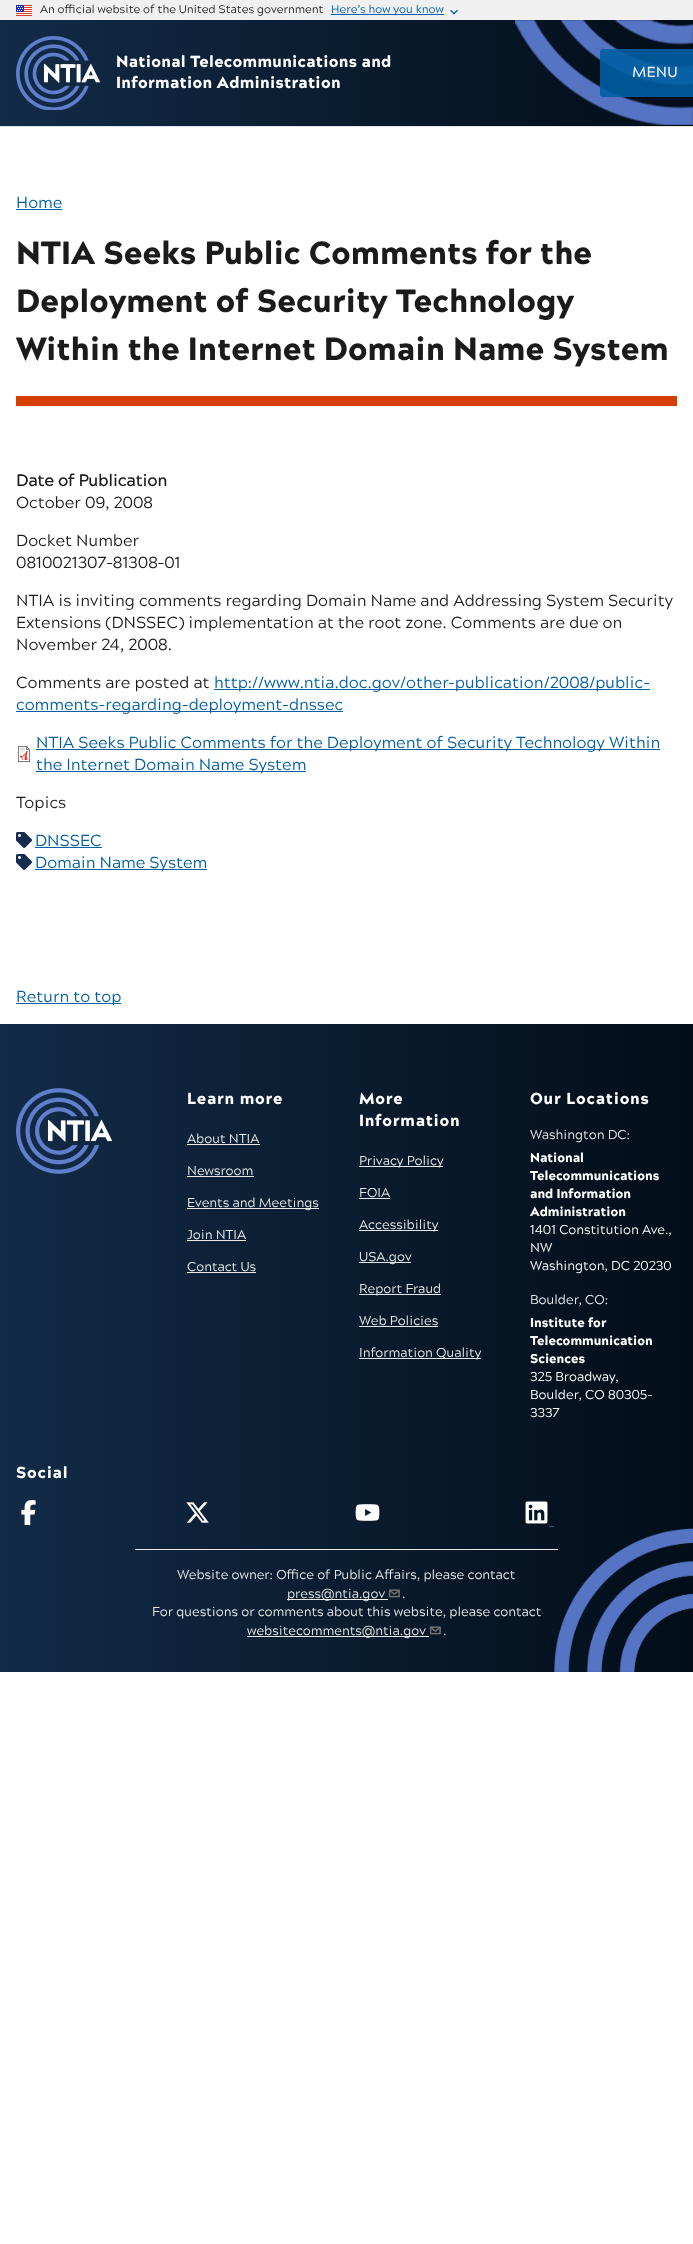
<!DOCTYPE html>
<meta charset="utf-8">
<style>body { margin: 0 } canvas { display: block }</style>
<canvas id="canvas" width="693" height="2244"></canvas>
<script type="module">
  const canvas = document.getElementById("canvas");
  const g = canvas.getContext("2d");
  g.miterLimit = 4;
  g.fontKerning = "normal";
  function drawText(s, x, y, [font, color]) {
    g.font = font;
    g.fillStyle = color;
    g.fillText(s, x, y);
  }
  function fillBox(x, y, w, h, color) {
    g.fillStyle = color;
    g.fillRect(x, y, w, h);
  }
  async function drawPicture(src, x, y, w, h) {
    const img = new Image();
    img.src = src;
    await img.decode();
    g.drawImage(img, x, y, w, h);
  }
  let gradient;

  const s1 = ["11.2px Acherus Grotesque", "#1B1B1B"];
  const s2 = ["11.2px Acherus Grotesque", "#005EA2"];
  const s3 = ["900 16px Acherus Grotesque", "#FFFFFF"];
  const s4 = ["bold 14px Acherus Grotesque", "#E6EFF6"];
  const s5 = ["16px Acherus Grotesque", "#005EA2"];
  const s6 = ["900 32px Acherus Grotesque", "#1B1B1B"];
  const s7 = ["bold 16px Acherus Grotesque", "#1B1B1B"];
  const s8 = ["16px Acherus Grotesque", "#1B1B1B"];
  const s9 = ["12.8px Acherus Grotesque", "#E8E9EA"];
  const s10 = ["900 12.8px Acherus Grotesque", "#FFFFFF"];
  const s11 = ["12.8px Acherus Grotesque", "#FFFFFF"];

  fillBox(0, 0, 693, 2244, "#FFFFFF");
  fillBox(0, 0, 693, 20, "#F0F0F0");
  await drawPicture("pic1.png", 16, 5, 16, 11);
  drawText("An official website of the United States government", 40, 13, s1);
  fillBox(331, 14, 113, 1, "#005EA2");
  drawText("Here’s how you know", 331, 13, s2);
  await drawPicture("pic2.png", 450, 9, 8, 6);
  await drawPicture("pic3.png", 0, 20, 693, 106);
  fillBox(0, 126, 693, 1, "#DFE1E2");
  await drawPicture("pic4.png", 16, 36, 84, 74);
  g.letterSpacing = "0.3px";
  drawText("National Telecommunications and", 116, 67, s3);
  drawText("Information Administration", 116, 88, s3);
  g.fillStyle = "rgba(0, 94, 162, 0.9)";
  g.beginPath();
  g.roundRect(600, 49, 93, 48, [3, 0, 0, 3]);
  g.fill();
  g.letterSpacing = "0.5px";
  drawText("MENU", 632, 77, s4);
  g.letterSpacing = "0px";
  drawText("Home", 16, 208, s5);
  fillBox(16, 209, 46, 1, "#005EA2");
  fillBox(16, 396, 661, 10, "#D63E04");
  drawText("NTIA Seeks Public Comments for the", 16, 264, s6);
  drawText("Deployment of Security Technology", 16, 312, s6);
  drawText("Within the Internet Domain Name System", 16, 360, s6);
  drawText("Date of Publication", 16, 486, s7);
  drawText("October 09, 2008", 16, 508, s8);
  drawText("Docket Number", 16, 546, s8);
  drawText("0810021307–81308–01", 16, 568, s8);
  drawText("NTIA is inviting comments regarding Domain Name and Addressing System Security", 16, 606, s8);
  drawText("Extensions (DNSSEC) implementation at the root zone. Comments are due on", 16, 628, s8);
  drawText("November 24, 2008.", 16, 650, s8);
  drawText("Comments are posted at", 16, 688, s8);
  fillBox(214, 689, 436, 1, "#005EA2");
  drawText("http://www.ntia.doc.gov/other-publication/2008/public-", 214, 688, s5);
  fillBox(16, 711, 327, 1, "#005EA2");
  drawText("comments-regarding-deployment-dnssec", 16, 710, s5);
  await drawPicture("pic5.png", 18, 746, 12, 16);
  fillBox(36, 749, 624, 1, "#005EA2");
  drawText("NTIA Seeks Public Comments for the Deployment of Security Technology Within", 36, 748, s5);
  fillBox(36, 771, 270, 1, "#005EA2");
  drawText("the Internet Domain Name System", 36, 770, s5);
  drawText("Topics", 16, 808, s8);
  await drawPicture("pic6.png", 16, 832, 16, 16);
  drawText("DNSSEC", 35, 846, s5);
  fillBox(35, 847, 67, 1, "#005EA2");
  await drawPicture("pic6.png", 16, 854, 16, 16);
  fillBox(35, 869, 172, 1, "#005EA2");
  drawText("Domain Name System", 35, 868, s5);
  fillBox(16, 1003, 105, 1, "#005EA2");
  drawText("Return to top", 16, 1002, s5);
  gradient = g.createLinearGradient(0, 1348, 693, 1348);
  gradient.addColorStop(0, "#122B47");
  gradient.addColorStop(1, "#020D18");
  g.fillStyle = gradient;
  g.fillRect(0, 1024, 693, 648);
  await drawPicture("pic7.png", 16, 1088, 96, 86);
  g.letterSpacing = "0.75px";
  drawText("Learn more", 187, 1104, s3);
  g.letterSpacing = "0px";
  drawText("About NTIA", 187, 1143, s9);
  fillBox(187, 1144, 73, 1, "#E8E9EA");
  drawText("Newsroom", 187, 1175, s9);
  fillBox(187, 1176, 67, 1, "#E8E9EA");
  fillBox(187, 1208, 132, 1, "#E8E9EA");
  drawText("Events and Meetings", 187, 1207, s9);
  drawText("Join NTIA", 187, 1239, s9);
  fillBox(187, 1240, 59, 1, "#E8E9EA");
  drawText("Contact Us", 187, 1271, s9);
  fillBox(187, 1272, 69, 1, "#E8E9EA");
  g.letterSpacing = "0.75px";
  drawText("More", 359, 1104, s3);
  drawText("Information", 359, 1126, s3);
  fillBox(359, 1166, 84, 1, "#E8E9EA");
  g.letterSpacing = "0px";
  drawText("Privacy Policy", 359, 1165, s9);
  drawText("FOIA", 359, 1197, s9);
  fillBox(359, 1198, 31, 1, "#E8E9EA");
  fillBox(359, 1230, 79, 1, "#E8E9EA");
  drawText("Accessibility", 359, 1229, s9);
  fillBox(359, 1262, 52, 1, "#E8E9EA");
  drawText("USA.gov", 359, 1261, s9);
  fillBox(359, 1294, 82, 1, "#E8E9EA");
  drawText("Report Fraud", 359, 1293, s9);
  drawText("Web Policies", 359, 1325, s9);
  fillBox(359, 1326, 79, 1, "#E8E9EA");
  fillBox(359, 1358, 122, 1, "#E8E9EA");
  drawText("Information Quality", 359, 1357, s9);
  g.letterSpacing = "0.75px";
  drawText("Our Locations", 530, 1104, s3);
  g.letterSpacing = "0px";
  drawText("Washington DC:", 530, 1139, s9);
  drawText("National", 530, 1162, s10);
  drawText("Telecommunications", 530, 1180, s10);
  drawText("and Information", 530, 1198, s10);
  drawText("Administration", 530, 1216, s10);
  drawText("1401 Constitution Ave.,", 530, 1234, s11);
  drawText("NW", 530, 1252, s11);
  drawText("Washington, DC 20230", 530, 1270, s11);
  drawText("Boulder, CO:", 530, 1304, s9);
  drawText("Institute for", 530, 1327, s10);
  drawText("Telecommunication", 530, 1345, s10);
  drawText("Sciences", 530, 1363, s10);
  drawText("325 Broadway,", 530, 1381, s11);
  drawText("Boulder, CO 80305-", 530, 1399, s11);
  drawText("3337", 530, 1417, s11);
  g.letterSpacing = "0.75px";
  drawText("Social", 16, 1478, s3);
  await drawPicture("pic8.png", 21, 1500, 15, 25);
  await drawPicture("pic9.png", 186, 1502, 23, 21);
  await drawPicture("pic10.png", 355, 1504, 25, 17);
  await drawPicture("pic11.png", 525, 1501, 23, 23);
  fillBox(549, 1526, 5, 1, "#005EA2");
  await drawPicture("pic14.png", 554, 1528, 139, 144);
  fillBox(135, 1549, 423, 1, "#E8E9EA");
  g.letterSpacing = "0px";
  drawText("Website owner: Office of Public Affairs, please contact", 177, 1579, s9);
  fillBox(287, 1599, 98, 1, "#E8E9EA");
  drawText("press@ntia.gov", 287, 1598, s9);
  fillBox(385, 1599, 3, 1, "#E8E9EA");
  await drawPicture("pic12.png", 388, 1589, 12, 9);
  drawText(".", 402, 1598, s9);
  drawText("For questions or comments about this website, please contact", 152, 1616, s9);
  fillBox(247, 1636, 182, 1, "#E8E9EA");
  drawText("websitecomments@ntia.gov", 247, 1635, s9);
  await drawPicture("pic13.png", 429, 1626, 12, 9);
  drawText(".", 443, 1635, s9);
</script>
